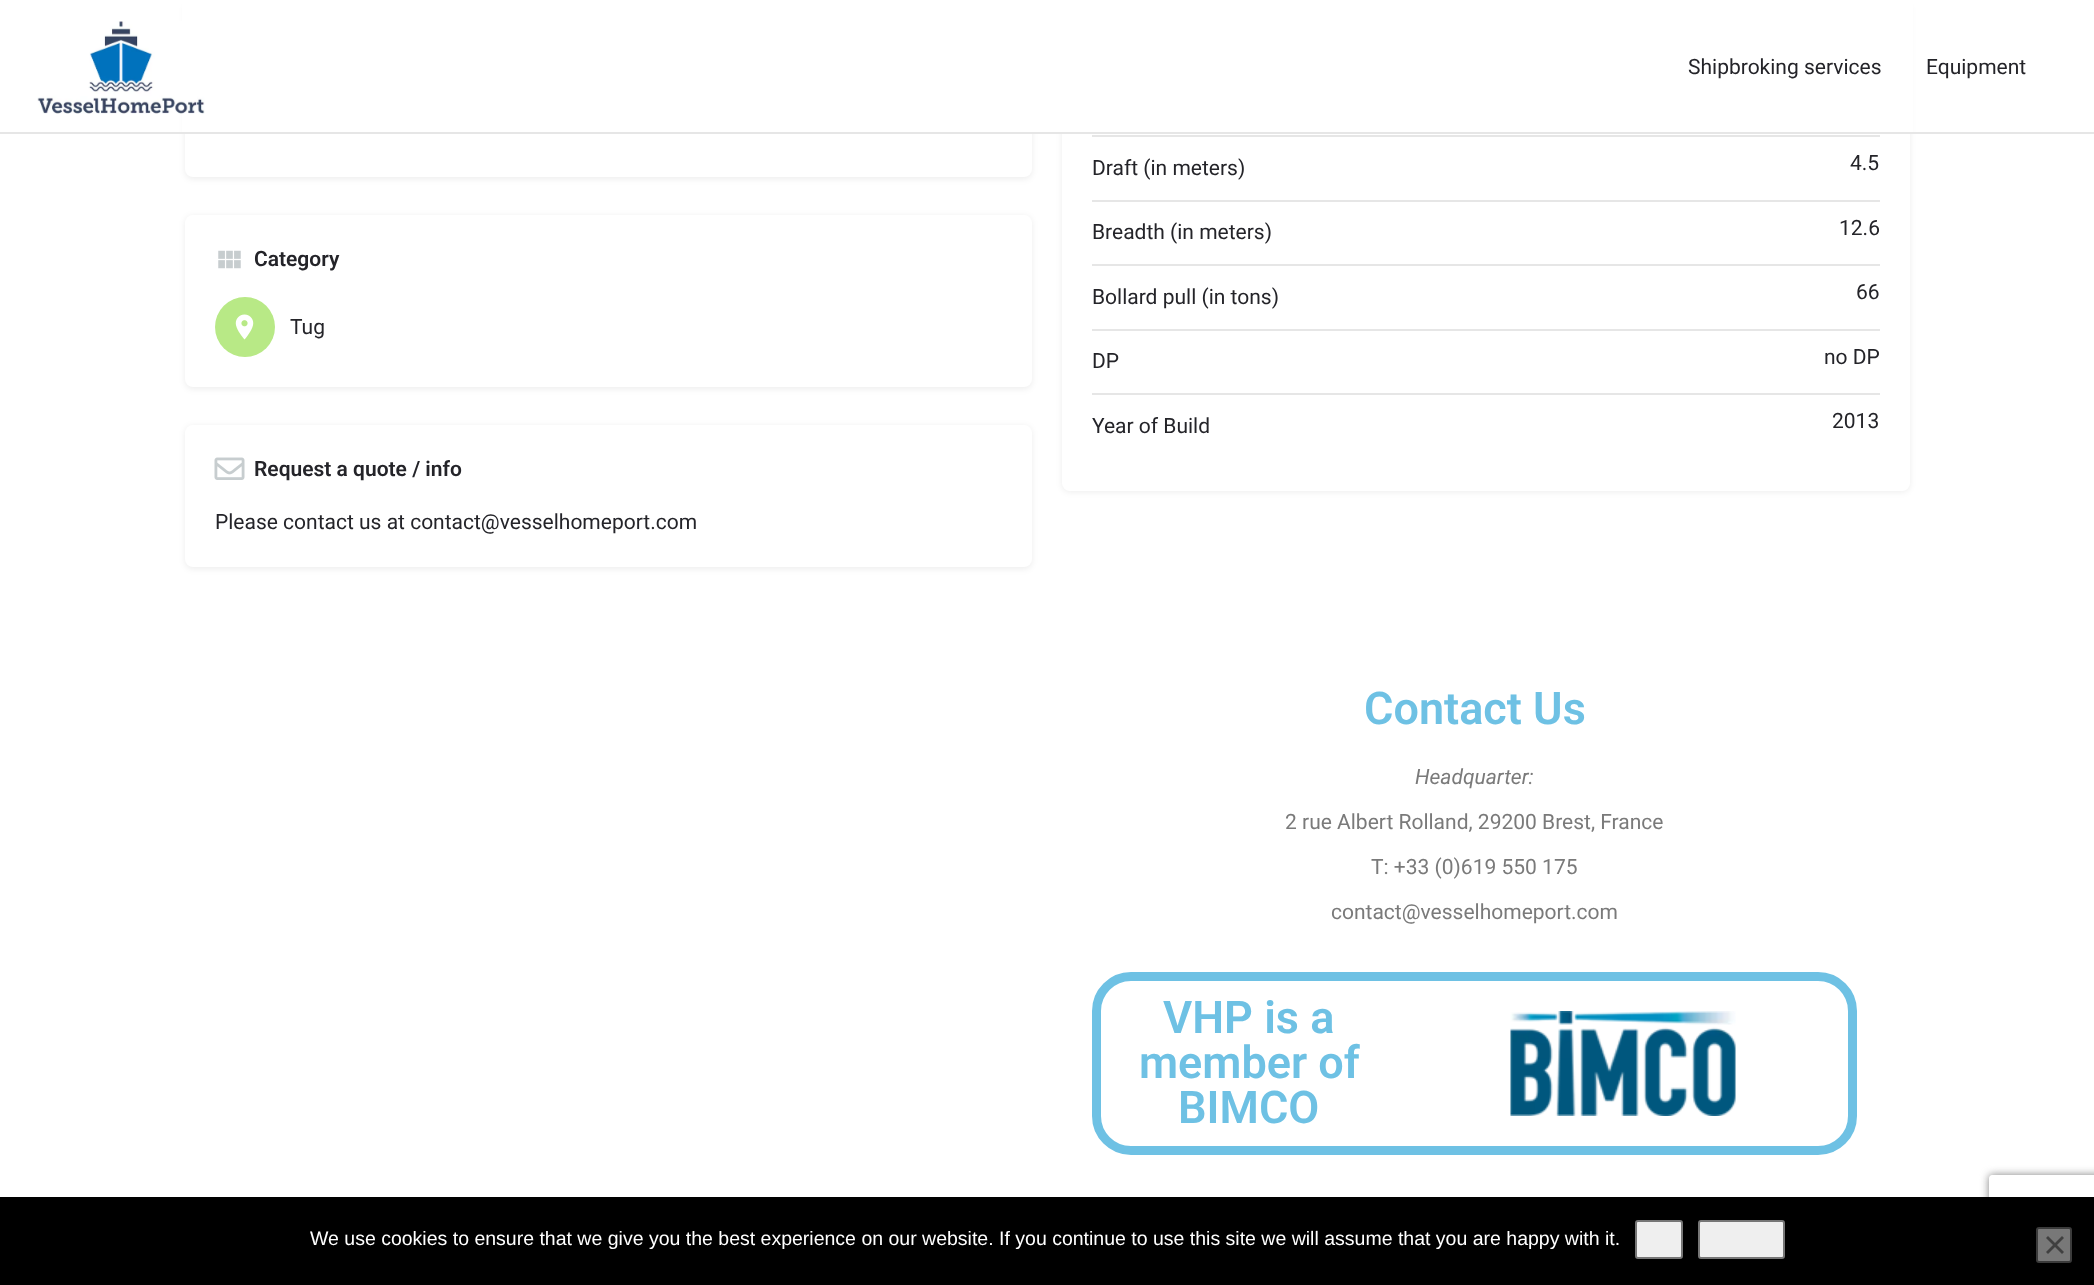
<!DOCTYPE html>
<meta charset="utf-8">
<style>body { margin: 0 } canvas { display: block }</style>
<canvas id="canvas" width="2094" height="1285"></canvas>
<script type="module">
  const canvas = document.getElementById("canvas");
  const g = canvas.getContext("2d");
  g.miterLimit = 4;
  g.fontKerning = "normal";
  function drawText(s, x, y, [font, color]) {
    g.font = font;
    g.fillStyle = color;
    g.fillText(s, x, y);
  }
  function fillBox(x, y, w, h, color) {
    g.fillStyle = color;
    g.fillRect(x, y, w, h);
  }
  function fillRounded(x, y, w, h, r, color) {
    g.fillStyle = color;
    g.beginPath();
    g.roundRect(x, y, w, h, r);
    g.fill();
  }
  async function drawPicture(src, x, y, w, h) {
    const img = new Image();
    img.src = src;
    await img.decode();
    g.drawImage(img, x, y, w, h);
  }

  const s1 = ["21px Roboto", "#242429"];
  const s2 = ["600 21px Roboto", "#242429"];
  const s3 = ["600 45px Roboto", "#6EC1E4"];
  const s4 = ["italic 21px Roboto", "#7A7A7A"];
  const s5 = ["21px Roboto", "#7A7A7A"];
  const s6 = ["19.5px Liberation Sans", "#FFFFFF"];

  fillBox(0, 0, 2094, 1285, "#FFFFFF");
  g.fillStyle = "rgba(0, 0, 0, 0.07)";
  g.filter = "blur(3px)";
  g.beginPath();
  g.roundRect(185, 3, 847, 176, 8);
  g.fill();
  g.filter = "none";
  fillRounded(185, 2, 847, 175, 8, "#FFFFFF");
  g.fillStyle = "rgba(0, 0, 0, 0.07)";
  g.filter = "blur(3px)";
  g.beginPath();
  g.roundRect(1062, 3, 848, 489, 8);
  g.fill();
  g.filter = "none";
  fillRounded(1062, 2, 848, 489, 8, "#FFFFFF");
  fillBox(182, 0, 1731, 132, "#FFFFFF");
  fillBox(0, 132, 2094, 2, "#E6E6E6");
  await drawPicture("pic1.png", 37, 21, 168, 93);
  drawText("Shipbroking services", 1688, 74, s1);
  drawText("Equipment", 1926, 74, s1);
  g.fillStyle = "rgba(0, 0, 0, 0.07)";
  g.filter = "blur(3px)";
  g.beginPath();
  g.roundRect(185, 216, 847, 173, 8);
  g.fill();
  g.filter = "none";
  fillRounded(185, 215, 847, 172, 8, "#FFFFFF");
  await drawPicture("pic2.png", 218, 250, 23, 19);
  drawText("Category", 254, 266, s2);
  g.fillStyle = "#B8E986";
  g.beginPath();
  g.arc(245, 327, 30, 0, Math.PI * 2);
  g.fill();
  await drawPicture("pic3.png", 235, 314, 19, 26);
  drawText("Tug", 290, 334, s1);
  g.fillStyle = "rgba(0, 0, 0, 0.07)";
  g.filter = "blur(3px)";
  g.beginPath();
  g.roundRect(185, 426, 847, 143, 8);
  g.fill();
  g.filter = "none";
  fillRounded(185, 425, 847, 142, 8, "#FFFFFF");
  await drawPicture("pic4.png", 214, 457, 31, 23);
  drawText("Request a quote / info", 254, 476, s2);
  drawText("Please contact us at contact@vesselhomeport.com", 215, 529, s1);
  fillBox(1092, 135, 788, 2, "#E6E6E6");
  fillBox(1092, 200, 788, 2, "#E6E6E6");
  drawText("Draft (in meters)", 1092, 175, s1);
  drawText("4.5", 1850, 170, s1);
  fillBox(1092, 264, 788, 2, "#E6E6E6");
  drawText("Breadth (in meters)", 1092, 239, s1);
  drawText("12.6", 1839, 235, s1);
  fillBox(1092, 329, 788, 2, "#E6E6E6");
  drawText("Bollard pull (in tons)", 1092, 304, s1);
  drawText("66", 1856, 299, s1);
  fillBox(1092, 393, 788, 2, "#E6E6E6");
  drawText("DP", 1092, 368, s1);
  drawText("no DP", 1824, 364, s1);
  drawText("Year of Build", 1092, 433, s1);
  drawText("2013", 1832, 428, s1);
  drawText("Contact Us", 1364, 724, s3);
  drawText("Headquarter:", 1415, 784, s4);
  drawText("2 rue Albert Rolland, 29200 Brest, France", 1285, 829, s5);
  drawText("T: +33 (0)619 550 175", 1371, 874, s5);
  drawText("contact@vesselhomeport.com", 1331, 919, s5);
  g.beginPath();
  g.roundRect(1096.5, 976.5, 756, 174, 34.5);
  g.strokeStyle = "#6EC1E4";
  g.lineWidth = 9;
  g.stroke();
  drawText("VHP is a", 1163, 1033, s3);
  drawText("member of", 1139, 1078, s3);
  drawText("BIMCO", 1178, 1123, s3);
  await drawPicture("pic5.png", 1510, 1011, 226, 105);
  g.save();
  g.beginPath();
  g.moveTo(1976, 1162);
  g.lineTo(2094, 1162);
  g.lineTo(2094, 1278);
  g.lineTo(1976, 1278);
  g.closePath();
  g.moveTo(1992, 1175);
  g.lineTo(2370, 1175);
  g.bezierCurveTo(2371.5, 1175, 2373, 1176.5, 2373, 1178);
  g.lineTo(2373, 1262);
  g.bezierCurveTo(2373, 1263.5, 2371.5, 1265, 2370, 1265);
  g.lineTo(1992, 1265);
  g.bezierCurveTo(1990.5, 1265, 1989, 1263.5, 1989, 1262);
  g.lineTo(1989, 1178);
  g.bezierCurveTo(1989, 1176.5, 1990.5, 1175, 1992, 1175);
  g.closePath();
  g.clip("evenodd");
  g.fillStyle = "#808080";
  g.filter = "blur(4px)";
  g.beginPath();
  g.roundRect(1989, 1175, 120, 90, 3);
  g.fill();
  g.filter = "none";
  g.restore();
  fillBox(0, 1197, 2094, 88, "#000000");
  drawText("We use cookies to ensure that we give you the best experience on our website. If you continue to use this site we will assume that you are happy with it.", 310, 1245, s6);
  g.fillStyle = "#EFEFEF";
  g.beginPath();
  g.roundRect(1636, 1221, 46, 37, 2);
  g.fill();
  g.strokeStyle = "#767676";
  g.lineWidth = 2;
  g.stroke();
  g.beginPath();
  g.roundRect(1699, 1221, 85, 37, 2);
  g.fill();
  g.stroke();
  g.fillStyle = "#787878";
  g.beginPath();
  g.roundRect(2037, 1228, 34, 34, 2);
  g.fill();
  g.strokeStyle = "#3B3B3B";
  g.stroke();
  g.fillStyle = "#404040";
  g.beginPath();
  g.moveTo(2062, 1236);
  g.lineTo(2064, 1238);
  g.lineTo(2048, 1254);
  g.lineTo(2046, 1252);
  g.closePath();
  g.fill();
  g.beginPath();
  g.moveTo(2046, 1238);
  g.lineTo(2048, 1236);
  g.lineTo(2064, 1252);
  g.lineTo(2062, 1254);
  g.closePath();
  g.fill();
</script>
